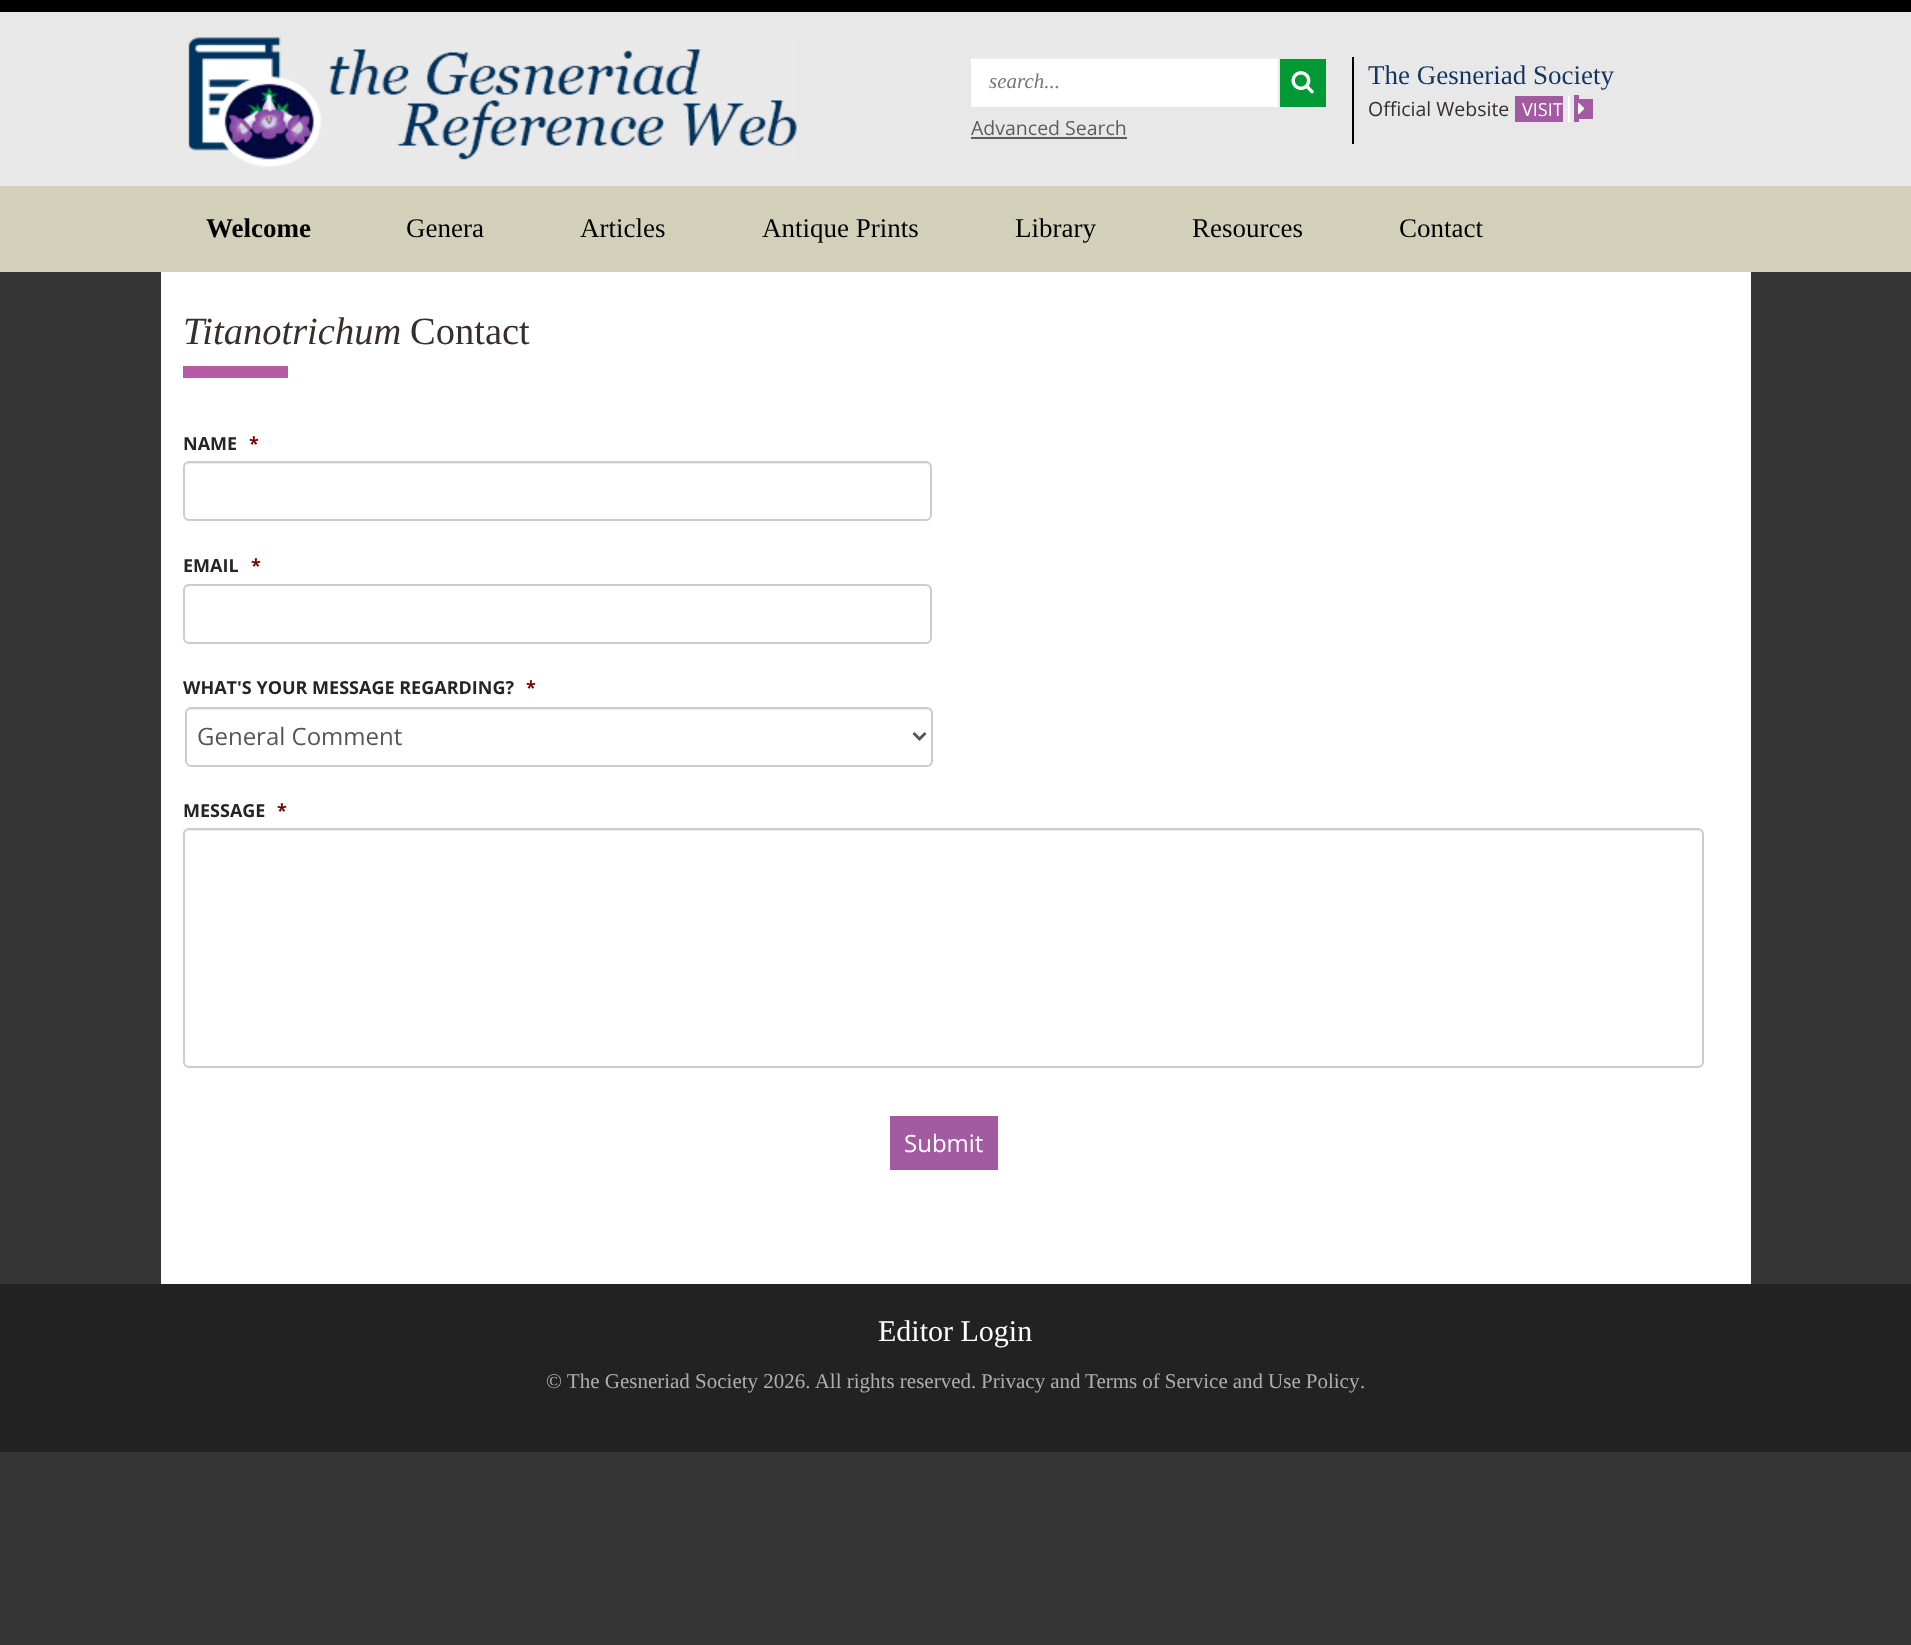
<!DOCTYPE html>
<meta charset="utf-8">
<style>body { margin: 0 } canvas { display: block }</style>
<canvas id="canvas" width="1911" height="1645"></canvas>
<script type="module">
  const canvas = document.getElementById("canvas");
  const g = canvas.getContext("2d");
  g.miterLimit = 4;
  g.fontKerning = "normal";
  function drawText(s, x, y, [font, color]) {
    g.font = font;
    g.fillStyle = color;
    g.fillText(s, x, y);
  }
  function fillBox(x, y, w, h, color) {
    g.fillStyle = color;
    g.fillRect(x, y, w, h);
  }
  async function drawPicture(src, x, y, w, h) {
    const img = new Image();
    img.src = src;
    await img.decode();
    g.drawImage(img, x, y, w, h);
  }

  const s1 = ["italic 21px Liberation Serif", "#777777"];
  const s2 = ["19.5px Open Sans", "#5D5D5D"];
  const s3 = ["27px Liberation Serif", "#12345D"];
  const s4 = ["19.5px Open Sans", "#362F2D"];
  const s5 = ["18px Open Sans", "#FFFFFF"];
  const s6 = ["bold 27px Liberation Serif", "#000000"];
  const s7 = ["27px Liberation Serif", "#000000"];
  const s8 = ["italic 38.5px Liberation Serif", "#362F2D"];
  const s9 = ["38.5px Liberation Serif", "#362F2D"];
  const s10 = ["bold 18px Open Sans", "#252525"];
  const s11 = ["bold 18px Open Sans", "#790000"];
  const s12 = ["24px Open Sans", "#555555"];
  const s13 = ["24px Open Sans", "#FFFFFF"];
  const s14 = ["30px Liberation Serif", "#FFFFFF"];
  const s15 = ["21px Liberation Serif", "#AEAEAE"];

  fillBox(0, 0, 1911, 1645, "#343434");
  fillBox(0, 12, 1911, 174, "#E8E8E8");
  fillBox(0, 0, 1911, 12, "#000000");
  await drawPicture("pic1.png", 188, 37, 609, 130);
  fillBox(1352, 57, 2, 87, "#000000");
  fillBox(971, 59, 307, 48, "#FFFFFF");
  fillBox(971, 57, 307, 2, "#ECECEC");
  drawText("search...", 989, 88, s1);
  fillBox(1280, 59, 46, 48, "#009933");
  await drawPicture("pic2.png", 1291, 71, 23, 23);
  drawText("Advanced Search", 971, 135, s2);
  fillBox(971, 137, 156, 2, "#5D5D5D");
  drawText("The Gesneriad Society", 1368, 84, s3);
  drawText("Official Website", 1368, 116, s4);
  fillBox(1515, 96, 48, 26, "#A25BA1");
  fillBox(1574, 95, 5, 27, "#A25BA1");
  fillBox(1579, 99, 14, 20, "#A25BA1");
  drawText("VISIT", 1522, 116, s5);
  fillBox(1568, 96, 2, 26, "#FFFFFF");
  await drawPicture("pic3.png", 1578, 103, 7, 11);
  fillBox(0, 186, 1911, 86, "#D2D0B9");
  drawText("Welcome", 206, 237, s6);
  drawText("Genera", 406, 237, s7);
  drawText("Articles", 580, 237, s7);
  drawText("Antique Prints", 762, 237, s7);
  drawText("Library", 1015, 237, s7);
  drawText("Resources", 1192, 237, s7);
  drawText("Contact", 1399, 237, s7);
  fillBox(161, 272, 1590, 1012, "#FFFFFF");
  fillBox(183, 366, 105, 12, "#B75BA6");
  drawText("Titanotrichum", 183, 344, s8);
  drawText("Contact", 410, 344, s9);
  drawText("NAME", 183, 450, s10);
  drawText("*", 249, 450, s11);
  g.fillStyle = "#ECECEC";
  g.beginPath();
  g.moveTo(189, 464);
  g.lineTo(926, 464);
  g.bezierCurveTo(928, 464, 930, 466, 930, 468);
  g.lineTo(930, 467);
  g.bezierCurveTo(930, 464, 928, 462, 925, 462);
  g.lineTo(190, 462);
  g.bezierCurveTo(188, 462, 186, 464, 185, 466);
  g.bezierCurveTo(186, 465, 188, 464, 189, 464);
  g.closePath();
  g.fill();
  g.beginPath();
  g.roundRect(184, 462, 747, 58, 5);
  g.strokeStyle = "#CCCCCC";
  g.lineWidth = 2;
  g.stroke();
  drawText("EMAIL", 183, 572, s10);
  drawText("*", 251, 572, s11);
  g.fillStyle = "#ECECEC";
  g.beginPath();
  g.moveTo(189, 586);
  g.lineTo(926, 586);
  g.bezierCurveTo(928, 586, 930, 589, 930, 591);
  g.lineTo(930, 590);
  g.bezierCurveTo(930, 587, 928, 585, 925, 585);
  g.lineTo(190, 585);
  g.bezierCurveTo(188, 585, 186, 586, 185, 588);
  g.bezierCurveTo(186, 587, 188, 586, 189, 586);
  g.closePath();
  g.fill();
  g.beginPath();
  g.roundRect(184, 585, 747, 58, 5);
  g.stroke();
  drawText("WHAT'S YOUR MESSAGE REGARDING?", 183, 694, s10);
  drawText("*", 526, 694, s11);
  g.fillStyle = "#ECECEC";
  g.beginPath();
  g.moveTo(190, 710);
  g.lineTo(927, 710);
  g.bezierCurveTo(929, 710, 932, 712, 932, 714);
  g.lineTo(932, 713);
  g.bezierCurveTo(932, 710, 930, 708, 927, 708);
  g.lineTo(191, 708);
  g.bezierCurveTo(188, 708, 186, 710, 186, 713);
  g.lineTo(186, 714);
  g.bezierCurveTo(186, 712, 188, 710, 190, 710);
  g.closePath();
  g.fill();
  g.beginPath();
  g.roundRect(186, 708, 746, 58, 5);
  g.stroke();
  g.beginPath();
  g.moveTo(913.5, 733);
  g.lineTo(919.5, 739);
  g.lineTo(925.5, 733);
  g.strokeStyle = "#555555";
  g.lineWidth = 3;
  g.stroke();
  drawText("General Comment", 197, 745, s12);
  drawText("MESSAGE", 183, 817, s10);
  drawText("*", 277, 817, s11);
  g.fillStyle = "#ECECEC";
  g.beginPath();
  g.moveTo(189, 831);
  g.lineTo(1698, 831);
  g.bezierCurveTo(1700, 831, 1702, 833, 1702, 836);
  g.lineTo(1702, 1065);
  g.bezierCurveTo(1703, 1064, 1703, 1063, 1703, 1062);
  g.lineTo(1703, 835);
  g.bezierCurveTo(1703, 832, 1701, 830, 1698, 830);
  g.lineTo(190, 830);
  g.bezierCurveTo(188, 830, 187, 831, 186, 832);
  g.closePath();
  g.fill();
  g.beginPath();
  g.roundRect(184, 829, 1519, 238, 5);
  g.strokeStyle = "#CCCCCC";
  g.lineWidth = 2;
  g.stroke();
  fillBox(890, 1116, 108, 54, "#A25BA1");
  drawText("Submit", 904, 1152, s13);
  fillBox(0, 1284, 1911, 168, "#222222");
  drawText("Editor Login", 878, 1341, s14);
  drawText("© The Gesneriad Society 2026. All rights reserved.", 546, 1388, s15);
  g.wordSpacing = "-0.25px";
  drawText("Privacy and Terms of Service and Use Policy", 981, 1388, s15);
  g.wordSpacing = "0px";
  drawText(".", 1360, 1388, s15);
</script>
